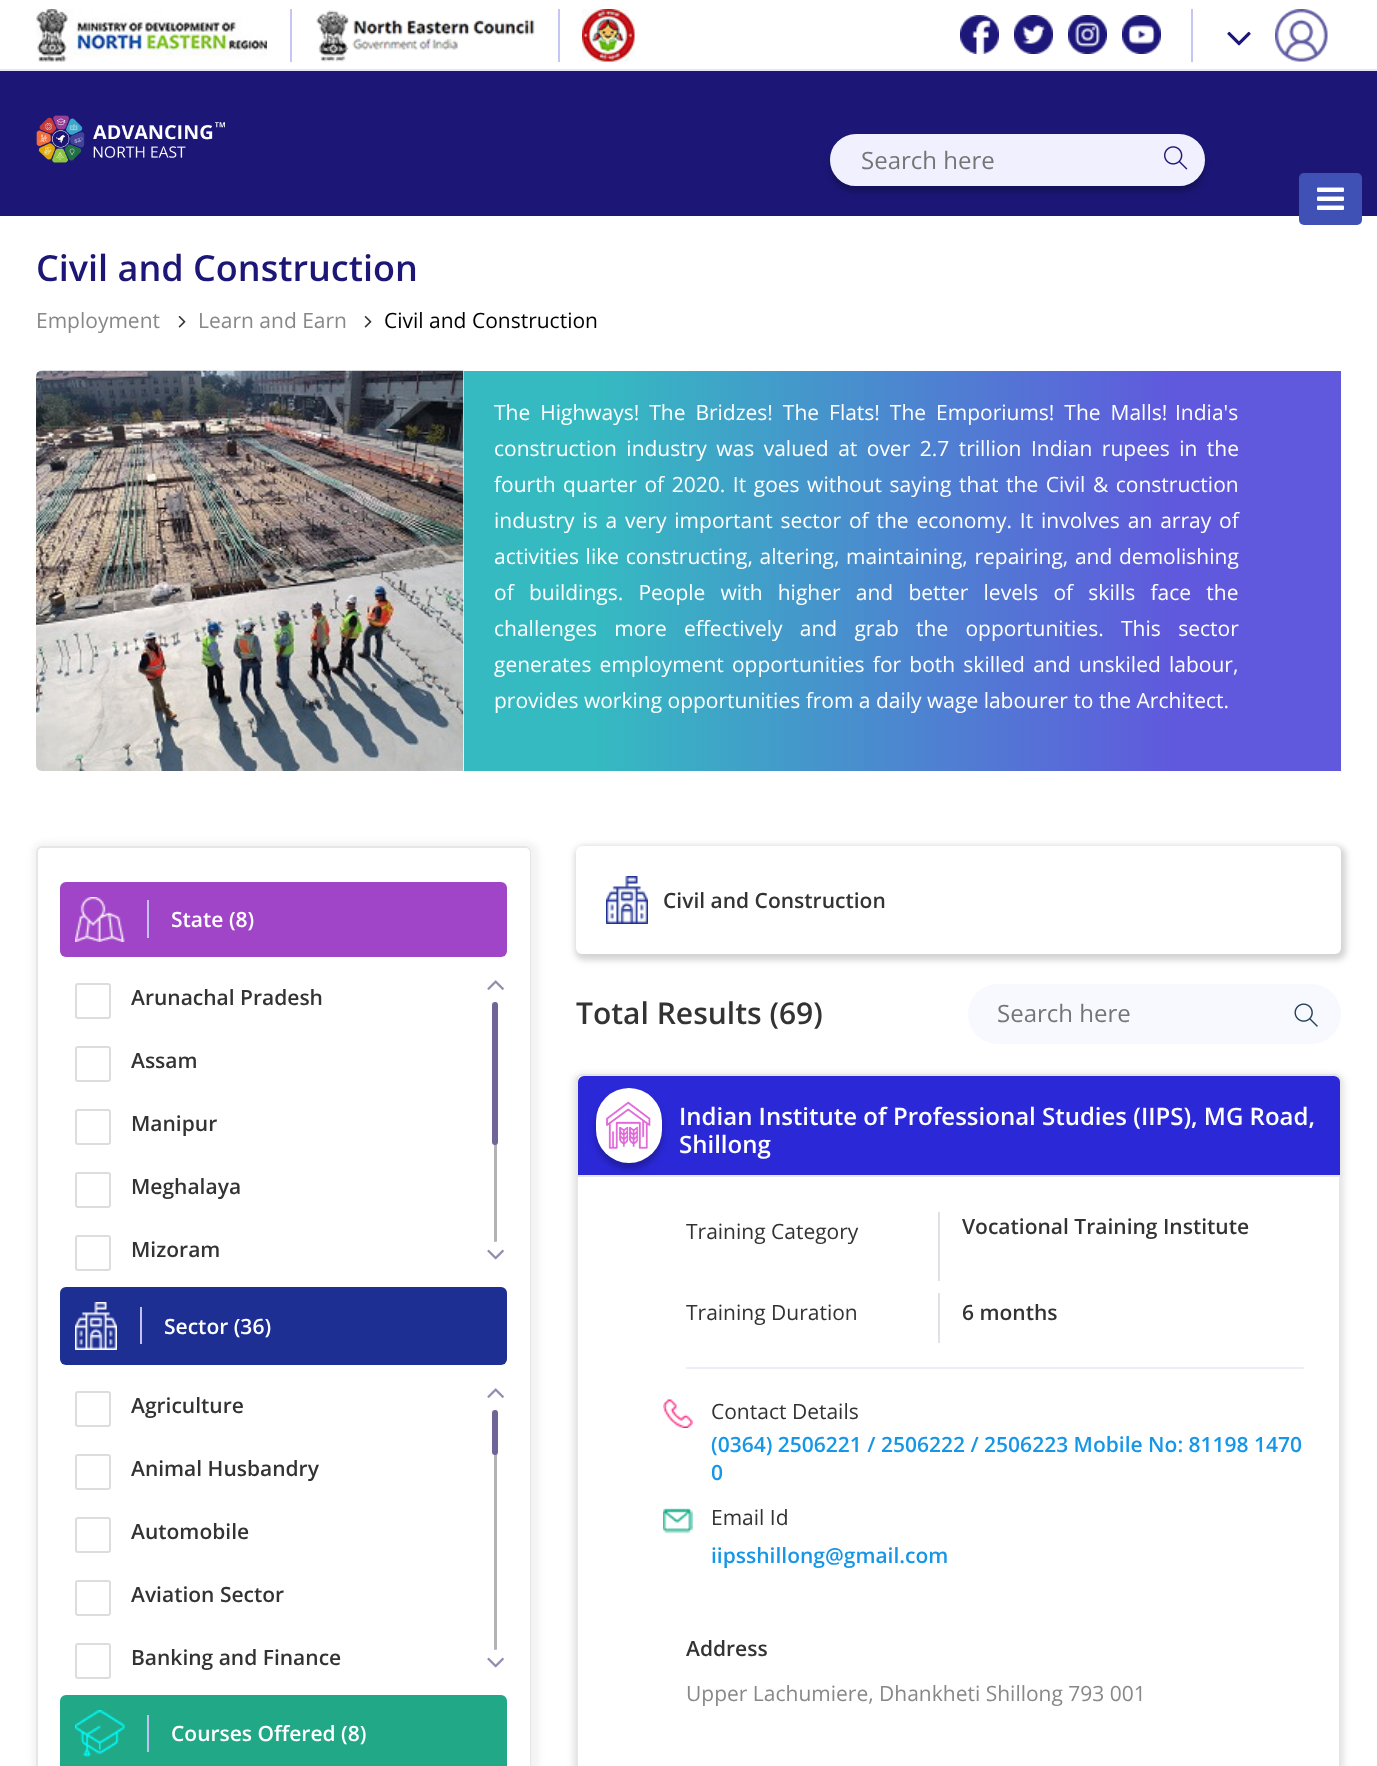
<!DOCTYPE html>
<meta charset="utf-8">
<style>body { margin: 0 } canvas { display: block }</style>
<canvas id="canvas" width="1377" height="1766"></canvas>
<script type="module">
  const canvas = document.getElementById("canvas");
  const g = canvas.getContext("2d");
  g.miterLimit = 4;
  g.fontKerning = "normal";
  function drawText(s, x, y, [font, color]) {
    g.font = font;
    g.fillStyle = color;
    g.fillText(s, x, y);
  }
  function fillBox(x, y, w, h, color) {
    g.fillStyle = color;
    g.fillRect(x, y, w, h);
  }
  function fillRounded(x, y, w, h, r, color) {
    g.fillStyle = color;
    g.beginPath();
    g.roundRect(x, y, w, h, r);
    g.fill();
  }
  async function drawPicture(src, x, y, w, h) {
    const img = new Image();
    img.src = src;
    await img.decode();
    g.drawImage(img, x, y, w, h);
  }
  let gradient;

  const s1 = ["24px Open Sans", "#757575"];
  const s2 = ["600 36px Open Sans", "#1C1777"];
  const s3 = ["21px Open Sans", "#888888"];
  const s4 = ["21px Open Sans", "#000000"];
  const s5 = ["21px Open Sans", "#FFFFFF"];
  const s6 = ["600 21px Open Sans", "#FFFFFF"];
  const s7 = ["600 21px Open Sans", "#333333"];
  const s8 = ["600 30px Open Sans", "#333333"];
  const s9 = ["600 24px Open Sans", "#FFFFFF"];
  const s10 = ["21px Open Sans", "#333333"];
  const s11 = ["600 21px Open Sans", "#1696E7"];

  fillBox(0, 0, 1377, 1766, "#FFFFFF");
  fillBox(0, 69, 1377, 2, "#E6E4FF");
  fillBox(290, 9, 2, 53, "#C7C5F4");
  await drawPicture("pic1.png", 36, 9, 231, 53);
  fillBox(558, 9, 2, 53, "#C7C5F4");
  await drawPicture("pic2.png", 316, 10, 219, 52);
  await drawPicture("pic3.png", 582, 9, 53, 53);
  await drawPicture("pic4.png", 960, 15, 39, 39);
  await drawPicture("pic5.png", 1014, 15, 39, 39);
  await drawPicture("pic6.png", 1068, 15, 39, 39);
  await drawPicture("pic7.png", 1122, 15, 39, 39);
  fillBox(1191, 9, 2, 53, "#C7C5F4");
  await drawPicture("pic8.png", 1227, 31, 24, 15);
  await drawPicture("pic9.png", 1275, 9, 53, 53);
  fillBox(0, 71, 1377, 145, "#1C1777");
  await drawPicture("pic10.png", 36, 115, 189, 48);
  g.fillStyle = "rgba(0, 0, 0, 0.25)";
  g.filter = "blur(3px)";
  g.beginPath();
  g.roundRect(830, 140, 375, 52, 26);
  g.fill();
  g.filter = "none";
  g.fillStyle = "#F1F0FF";
  g.beginPath();
  g.roundRect(831, 135, 373, 50, 25);
  g.fill();
  g.strokeStyle = "#F1F0FF";
  g.lineWidth = 2;
  g.stroke();
  drawText("Search here", 861, 169, s1);
  await drawPicture("pic11.png", 1164, 146, 24, 24);
  fillRounded(1299, 173, 63, 52, 5, "#3F51B5");
  await drawPicture("pic12.png", 1317, 187, 27, 23);
  drawText("Civil and Construction", 36, 281, s2);
  drawText("Employment", 36, 328, s3);
  await drawPicture("pic13.png", 178, 316, 8, 12);
  drawText("Learn and Earn", 198, 328, s3);
  await drawPicture("pic13.png", 364, 316, 8, 12);
  drawText("Civil and Construction", 384, 328, s4);
  await drawPicture("pic14.png", 36, 370, 428, 401);
  gradient = g.createLinearGradient(464, 571, 1341, 571);
  gradient.addColorStop(0.15, "#35BAC1");
  gradient.addColorStop(0.81, "#6059DD");
  g.fillStyle = gradient;
  g.fillRect(464, 371, 877, 400);
  g.wordSpacing = "4.5px";
  drawText("The Highways! The Bridzes! The Flats! The Emporiums! The Malls!", 494, 420, s5);
  g.wordSpacing = "0px";
  drawText("India's", 1175, 420, s5);
  g.wordSpacing = "4px";
  drawText("construction industry was valued at over 2.7 trillion Indian rupees in the", 494, 456, s5);
  g.wordSpacing = "2.1px";
  drawText("fourth quarter of 2020. It goes without saying that the Civil & construction", 494, 492, s5);
  g.wordSpacing = "2.4px";
  drawText("industry is a very important sector of the economy. It involves an array of", 494, 528, s5);
  g.wordSpacing = "1.25px";
  drawText("activities like constructing, altering, maintaining, repairing, and demolishing", 494, 564, s5);
  g.wordSpacing = "9.75px";
  drawText("of buildings. People with higher and better levels of skills face the", 494, 600, s5);
  g.wordSpacing = "11.75px";
  drawText("challenges more effectively and grab the opportunities.", 494, 636, s5);
  g.wordSpacing = "12px";
  drawText("This sector", 1121, 636, s5);
  g.wordSpacing = "2.75px";
  drawText("generates employment opportunities for both skilled and unskiled labour,", 494, 672, s5);
  g.wordSpacing = "0px";
  drawText("provides working opportunities from a daily wage labourer to the Architect.", 494, 708, s5);
  g.fillStyle = "rgba(209, 209, 209, 0.25)";
  g.filter = "blur(3px)";
  g.beginPath();
  g.roundRect(32, 842, 507, 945, 12);
  g.fill();
  g.filter = "none";
  g.fillStyle = "#FFFFFF";
  g.beginPath();
  g.roundRect(37, 847, 493, 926, 5);
  g.fill();
  g.strokeStyle = "#E6E6E6";
  g.stroke();
  g.beginPath();
  g.moveTo(43, 848);
  g.lineTo(525, 848);
  g.bezierCurveTo(528, 848, 530, 850, 530, 853);
  g.lineTo(530, 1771);
  g.lineTo(38, 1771);
  g.lineTo(38, 853);
  g.bezierCurveTo(38, 850, 40, 848, 43, 848);
  g.closePath();
  g.fill();
  fillRounded(60, 882, 447, 75, 6, "#A145C8");
  await drawPicture("pic15.png", 75, 897, 50, 45);
  fillBox(147, 900, 2, 38, "#C3C0F2");
  drawText("State (8)", 171, 927, s6);
  g.beginPath();
  g.roundRect(76, 984, 34, 34, 2);
  g.strokeStyle = "#DDDDDD";
  g.stroke();
  drawText("Arunachal Pradesh", 131, 1005, s7);
  g.beginPath();
  g.roundRect(76, 1047, 34, 34, 2);
  g.stroke();
  drawText("Assam", 131, 1068, s7);
  g.beginPath();
  g.roundRect(76, 1110, 34, 34, 2);
  g.stroke();
  drawText("Manipur", 131, 1131, s7);
  g.beginPath();
  g.roundRect(76, 1173, 34, 34, 2);
  g.stroke();
  drawText("Meghalaya", 131, 1194, s7);
  g.beginPath();
  g.roundRect(76, 1236, 34, 34, 2);
  g.stroke();
  drawText("Mizoram", 131, 1257, s7);
  await drawPicture("pic16.png", 487, 980, 17, 10);
  fillRounded(494, 1002, 3, 240, 1.5, "#B3B3B3");
  fillRounded(492, 1002, 6, 143, 3, "#706596");
  await drawPicture("pic17.png", 487, 1249, 17, 11);
  fillRounded(60, 1287, 447, 78, 6, "#1D2F93");
  await drawPicture("pic18.png", 75, 1302, 42, 48);
  fillBox(140, 1307, 2, 37, "#C3C0F2");
  drawText("Sector (36)", 164, 1334, s6);
  g.beginPath();
  g.roundRect(76, 1392, 34, 34, 2);
  g.stroke();
  drawText("Agriculture", 131, 1413, s7);
  g.beginPath();
  g.roundRect(76, 1455, 34, 34, 2);
  g.stroke();
  drawText("Animal Husbandry", 131, 1476, s7);
  g.beginPath();
  g.roundRect(76, 1518, 34, 34, 2);
  g.stroke();
  drawText("Automobile", 131, 1539, s7);
  g.beginPath();
  g.roundRect(76, 1581, 34, 34, 2);
  g.stroke();
  drawText("Aviation Sector", 131, 1602, s7);
  g.beginPath();
  g.roundRect(76, 1644, 34, 34, 2);
  g.stroke();
  drawText("Banking and Finance", 131, 1665, s7);
  await drawPicture("pic16.png", 487, 1388, 17, 10);
  fillRounded(494, 1410, 3, 240, 1.5, "#B3B3B3");
  fillRounded(492, 1410, 6, 45, 3, "#706596");
  await drawPicture("pic17.png", 487, 1657, 17, 11);
  fillRounded(60, 1695, 447, 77, 6, "#21A887");
  await drawPicture("pic19.png", 75, 1710, 50, 47);
  fillBox(147, 1715, 2, 37, "#C3C0F2");
  drawText("Courses Offered (8)", 171, 1741, s6);
  g.fillStyle = "rgba(80, 80, 80, 0.25)";
  g.filter = "blur(3px)";
  g.beginPath();
  g.roundRect(575, 846, 771, 114, 9);
  g.fill();
  g.filter = "none";
  fillRounded(576, 846, 765, 108, 6, "#FFFFFF");
  await drawPicture("pic20.png", 606, 876, 42, 48);
  drawText("Civil and Construction", 663, 908, s7);
  drawText("Total Results (69)", 576, 1024, s8);
  fillRounded(968, 984, 373, 60, 30, "#F8F8FF");
  drawText("Search here", 997, 1022, s1);
  await drawPicture("pic21.png", 1294, 1003, 24, 24);
  g.fillStyle = "rgba(147, 147, 147, 0.25)";
  g.filter = "blur(3px)";
  g.beginPath();
  g.roundRect(573, 1074, 771, 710, 9);
  g.fill();
  g.filter = "none";
  g.fillStyle = "#FFFFFF";
  g.beginPath();
  g.roundRect(577, 1075, 763, 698, 5);
  g.fill();
  g.strokeStyle = "#E6E6E6";
  g.stroke();
  g.fillStyle = "#2B28D8";
  g.beginPath();
  g.roundRect(578, 1076, 762, 100, [6, 6, 0, 0]);
  g.fill();
  fillBox(578, 1175, 762, 2, "#E6E6E6");
  g.fillStyle = "rgba(0, 0, 0, 0.25)";
  g.filter = "blur(3px)";
  g.beginPath();
  g.roundRect(596, 1094, 66, 75, 33);
  g.fill();
  g.filter = "none";
  fillRounded(596, 1088, 66, 75, 33, "#FFFFFF");
  await drawPicture("pic22.png", 606, 1101, 45, 48);
  drawText("Indian Institute of Professional Studies (IIPS), MG Road,", 679, 1125, s9);
  drawText("Shillong", 679, 1153, s9);
  fillBox(938, 1212, 2, 69, "#DEE2E6");
  drawText("Training Category", 686, 1239, s10);
  drawText("Vocational Training Institute", 962, 1234, s7);
  fillBox(938, 1293, 2, 50, "#DEE2E6");
  drawText("Training Duration", 686, 1320, s10);
  drawText("6 months", 962, 1320, s7);
  fillBox(686, 1367, 618, 2, "#ECEFF8");
  await drawPicture("pic23.png", 663, 1399, 30, 29);
  drawText("Contact Details", 711, 1419, s10);
  drawText("(0364) 2506221 / 2506222 / 2506223 Mobile No: 81198 1470", 711, 1452, s11);
  drawText("0", 711, 1480, s11);
  await drawPicture("pic24.png", 663, 1508, 30, 26);
  drawText("Email Id", 711, 1525, s10);
  drawText("iipsshillong@gmail.com", 711, 1563, s11);
  drawText("Address", 686, 1656, s7);
  drawText("Upper Lachumiere, Dhankheti Shillong 793 001", 686, 1701, s3);
</script>
